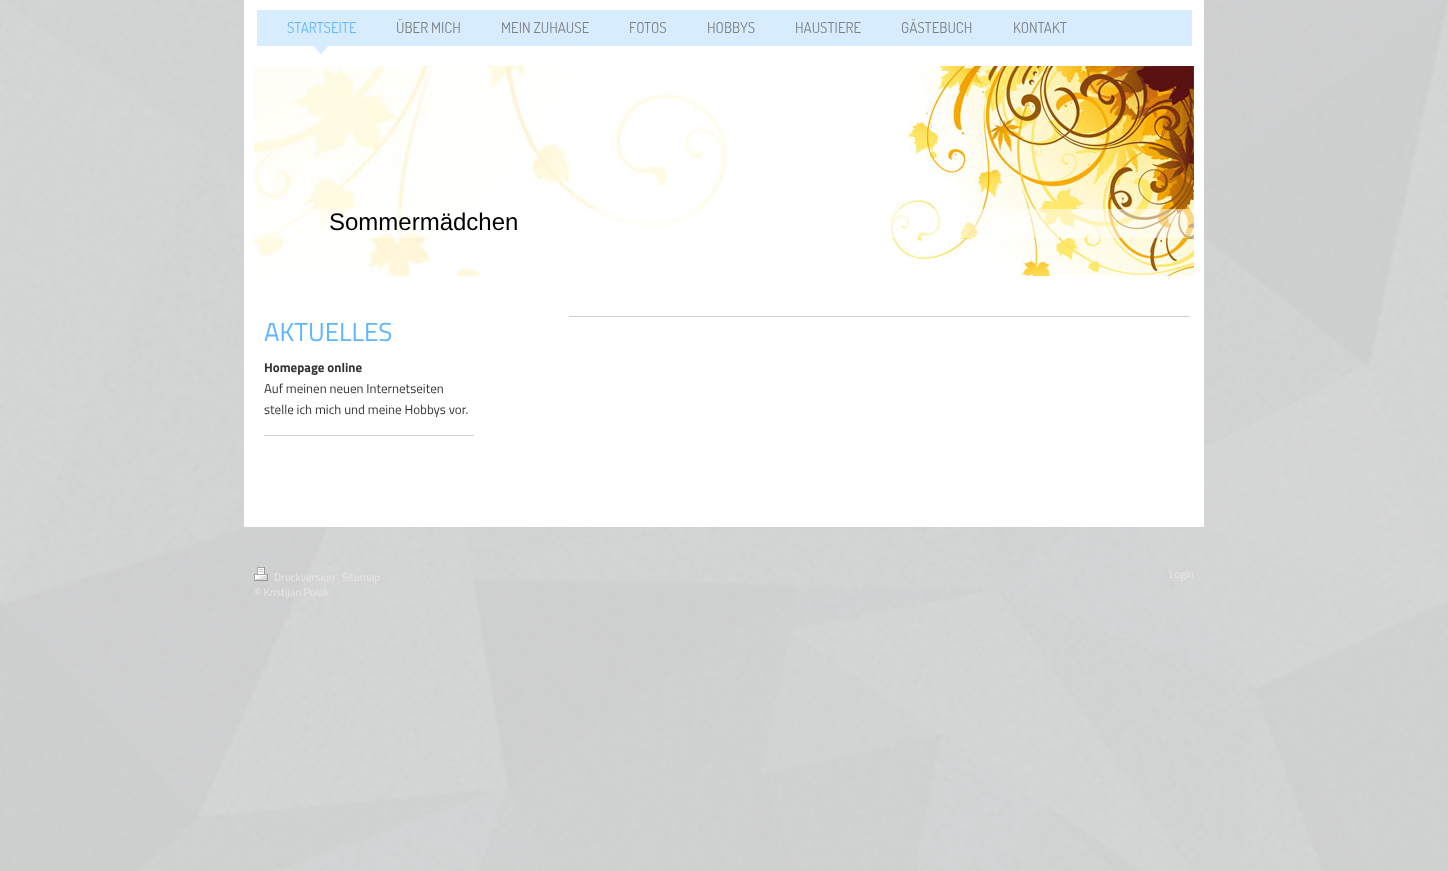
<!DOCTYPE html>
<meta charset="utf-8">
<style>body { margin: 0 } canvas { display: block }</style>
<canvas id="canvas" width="1448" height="871"></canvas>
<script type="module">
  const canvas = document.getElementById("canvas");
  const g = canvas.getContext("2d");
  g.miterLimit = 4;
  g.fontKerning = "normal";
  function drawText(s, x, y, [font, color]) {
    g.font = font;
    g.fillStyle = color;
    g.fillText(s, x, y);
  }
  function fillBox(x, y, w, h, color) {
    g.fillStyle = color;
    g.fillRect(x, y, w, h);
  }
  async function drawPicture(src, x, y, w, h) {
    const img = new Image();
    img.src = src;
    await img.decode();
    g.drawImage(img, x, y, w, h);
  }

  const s1 = ["15px Dosis", "#60B6FF"];
  const s2 = ["15px Dosis", "#808080"];
  const s3 = ["24px Liberation Sans", "#000000"];
  const s4 = ["26px Titillium Web", "#60B6FF"];
  const s5 = ["bold 13px Titillium Web", "#333333"];
  const s6 = ["13px Titillium Web", "#333333"];
  const s7 = ["11px Titillium Web", "#EAE7E3"];

  fillBox(0, 0, 1448, 871, "#FFFFFF");
  await drawPicture("pic1.png", 0, 0, 1448, 871);
  fillBox(244, 0, 960, 527, "#FFFFFF");
  fillBox(257, 10, 935, 36, "#D7EDFF");
  await drawPicture("pic2.png", 314, 46, 14, 8);
  drawText("STARTSEITE", 287, 33, s1);
  drawText("ÜBER MICH", 396, 33, s2);
  drawText("MEIN ZUHAUSE", 501, 33, s2);
  drawText("FOTOS", 629, 33, s2);
  drawText("HOBBYS", 707, 33, s2);
  drawText("HAUSTIERE", 795, 33, s2);
  drawText("GÄSTEBUCH", 901, 33, s2);
  drawText("KONTAKT", 1013, 33, s2);
  await drawPicture("pic3.png", 254, 66, 940, 210);
  fillBox(257, 209, 937, 29, "rgba(255, 255, 255, 0.5)");
  drawText("Sommermädchen", 329, 230, s3);
  fillBox(569, 316, 620, 1, "#CCCCCC");
  drawText("AKTUELLES", 264, 341, s4);
  drawText("Homepage online", 264, 372, s5);
  drawText("Auf meinen neuen Internetseiten", 264, 393, s6);
  drawText("stelle ich mich und meine Hobbys vor.", 264, 414, s6);
  fillBox(264, 435, 210, 1, "#CCCCCC");
  await drawPicture("pic4.png", 254, 567, 14, 14);
  drawText("Druckversion", 274, 581, s7);
  drawText("Sitemap", 342, 581, s7);
  drawText("© Kristijan Polak", 254, 596, s7);
  drawText("Login", 1169, 578, s7);
</script>
